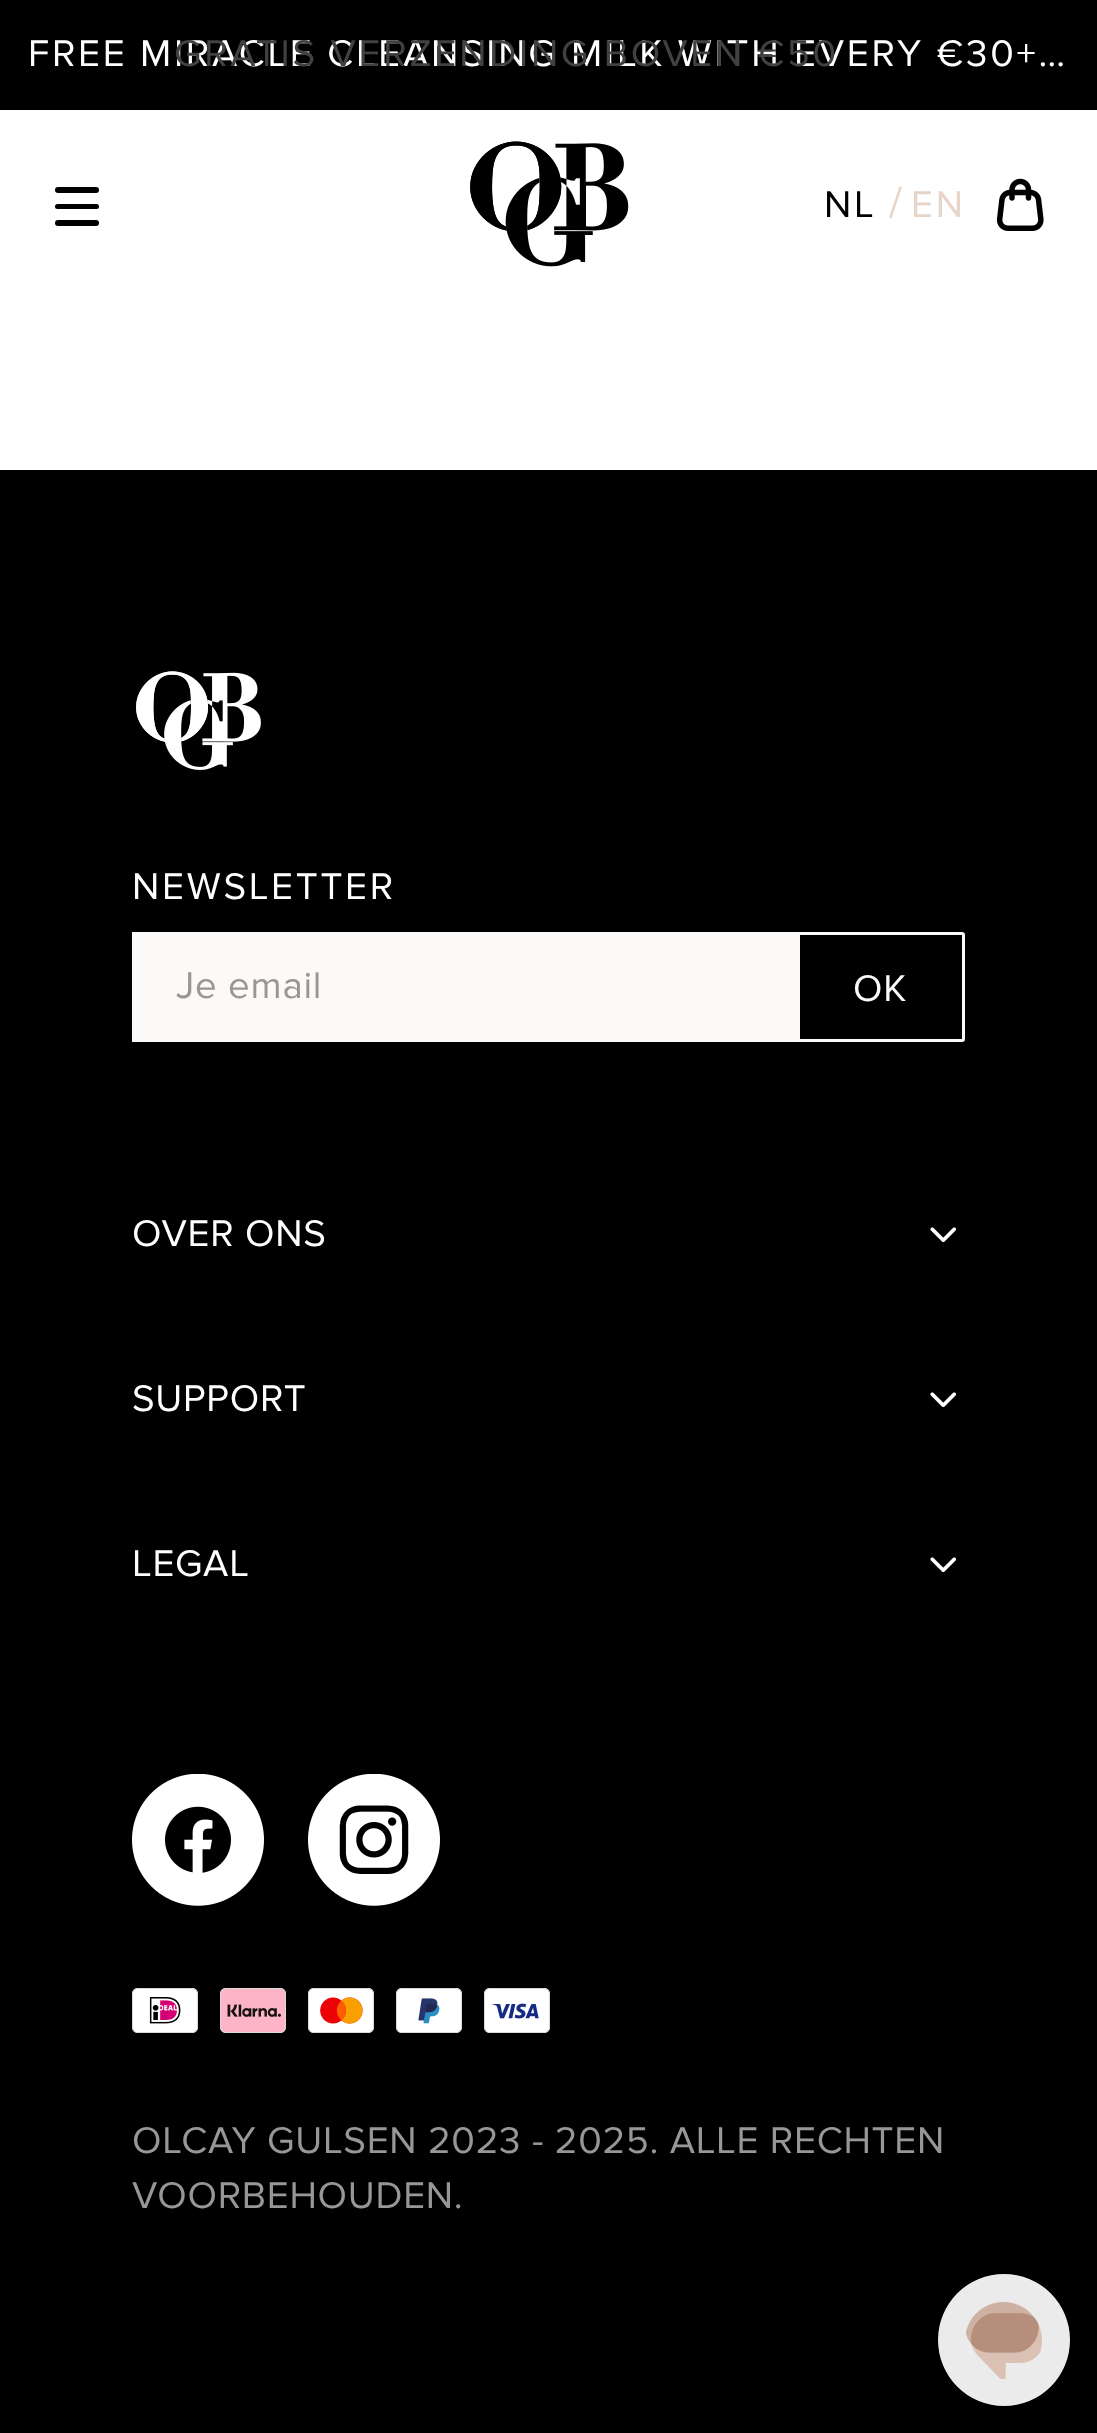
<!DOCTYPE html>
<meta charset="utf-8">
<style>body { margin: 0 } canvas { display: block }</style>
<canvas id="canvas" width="1097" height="2433"></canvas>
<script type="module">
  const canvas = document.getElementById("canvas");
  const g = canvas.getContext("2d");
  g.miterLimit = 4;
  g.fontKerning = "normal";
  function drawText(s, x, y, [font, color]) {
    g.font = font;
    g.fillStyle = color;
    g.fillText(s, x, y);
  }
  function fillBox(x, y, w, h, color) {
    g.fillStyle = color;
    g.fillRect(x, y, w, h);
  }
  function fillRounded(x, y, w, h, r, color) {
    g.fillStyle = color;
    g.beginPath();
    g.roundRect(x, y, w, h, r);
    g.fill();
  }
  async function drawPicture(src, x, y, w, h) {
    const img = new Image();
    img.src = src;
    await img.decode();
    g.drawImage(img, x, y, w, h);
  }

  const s1 = ["38.5px Proxima Nova", "#FFFFFF"];
  const s2 = ["38.5px Proxima Nova", "#414141"];
  const s3 = ["38.5px Proxima Nova", "#000000"];
  const s4 = ["44px Proxima Nova", "#E6D5C8"];
  const s5 = ["38.5px Proxima Nova", "#E6D5C8"];
  const s6 = ["38.5px Proxima Nova", "#999795"];
  const s7 = ["38.5px Proxima Nova", "#FCFAF9"];

  fillBox(0, 0, 1097, 2433, "#FFFFFF");
  fillBox(0, 0, 1097, 110, "#000000");
  g.letterSpacing = "2.75px";
  drawText("FREE MIRACLE CLEANSING MILK WITH EVERY €30+…", 28, 66, s1);
  drawText("GRATIS VERZENDING BOVEN €50", 174, 66, s2);
  fillRounded(55, 204, 44, 5, 2.5, "#000000");
  fillRounded(55, 187, 44, 6, 3, "#000000");
  fillRounded(55, 220, 44, 6, 3, "#000000");
  await drawPicture("pic1.png", 470, 141, 159, 126);
  drawText("NL", 824, 217, s3);
  g.letterSpacing = "0.75px";
  drawText("/", 889, 217, s4);
  g.letterSpacing = "2.75px";
  drawText("EN", 911, 217, s5);
  await drawPicture("pic2.png", 996, 178, 48, 53);
  fillBox(0, 470, 1097, 1963, "#000000");
  await drawPicture("pic3.png", 136, 671, 125, 99);
  drawText("NEWSLETTER", 132, 899, s1);
  fillBox(132, 932, 668, 110, "#FCFAF9");
  g.letterSpacing = "0.75px";
  drawText("Je email", 176, 998, s6);
  g.beginPath();
  g.roundRect(796.5, 933.5, 167, 107, 1.5);
  g.strokeStyle = "#FCFAF9";
  g.lineWidth = 3;
  g.stroke();
  drawText("OK", 853, 1001, s7);
  drawText("OVER ONS", 132, 1246, s1);
  await drawPicture("pic4.png", 930, 1227, 27, 16);
  drawText("SUPPORT", 132, 1411, s1);
  await drawPicture("pic4.png", 930, 1392, 27, 16);
  drawText("LEGAL", 132, 1576, s1);
  await drawPicture("pic4.png", 930, 1557, 27, 16);
  await drawPicture("pic5.png", 132, 1774, 132, 132);
  await drawPicture("pic6.png", 308, 1774, 132, 132);
  await drawPicture("pic7.png", 132, 1988, 66, 45);
  await drawPicture("pic8.png", 220, 1988, 66, 45);
  await drawPicture("pic9.png", 308, 1988, 66, 45);
  await drawPicture("pic10.png", 396, 1988, 66, 45);
  await drawPicture("pic11.png", 484, 1988, 66, 45);
  drawText("OLCAY GULSEN 2023 - 2025. ALLE RECHTEN", 132, 2153, s6);
  drawText("VOORBEHOUDEN.", 132, 2208, s6);
  g.fillStyle = "#EBEBEB";
  g.beginPath();
  g.arc(1004, 2340, 66, 0, Math.PI * 2);
  g.fill();
  await drawPicture("pic12.png", 966, 2302, 76, 77);
</script>
